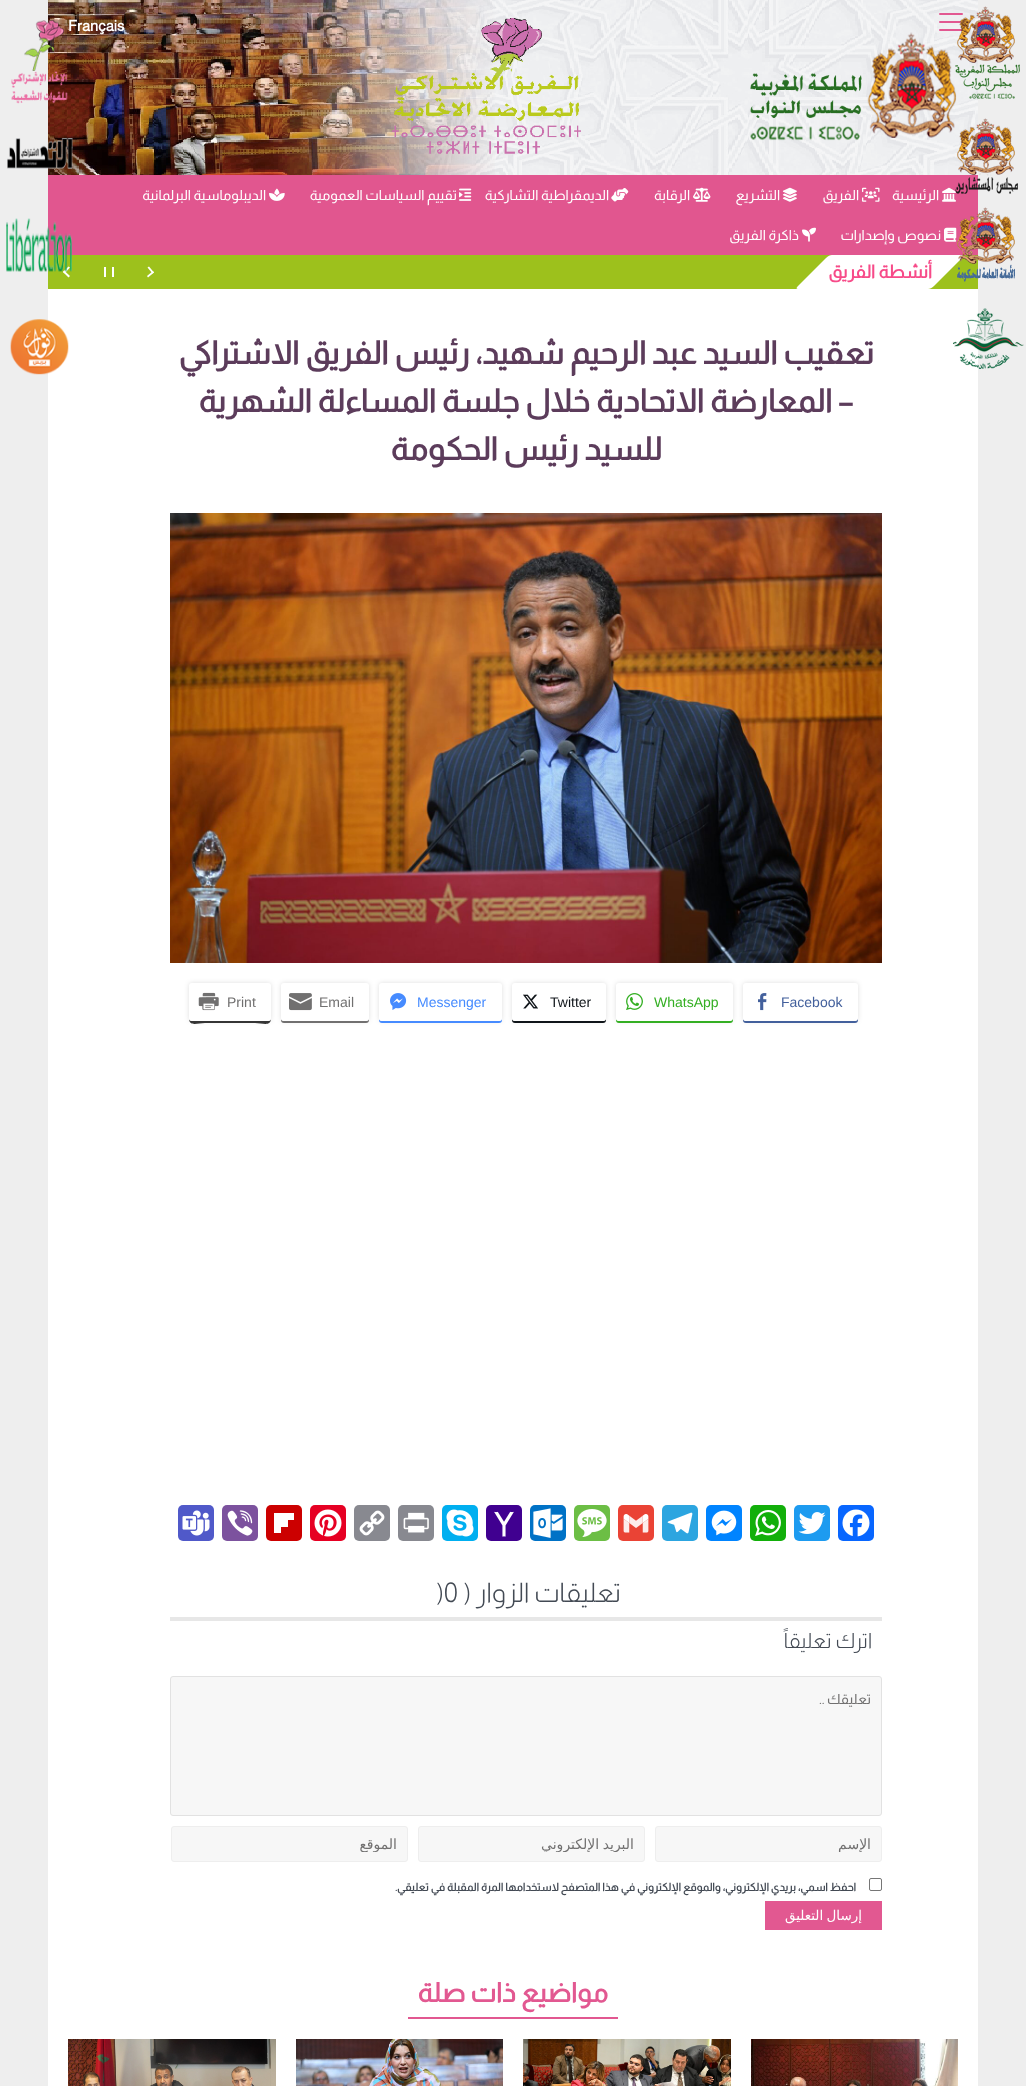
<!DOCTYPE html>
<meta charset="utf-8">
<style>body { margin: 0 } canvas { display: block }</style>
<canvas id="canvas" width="1026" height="2086"></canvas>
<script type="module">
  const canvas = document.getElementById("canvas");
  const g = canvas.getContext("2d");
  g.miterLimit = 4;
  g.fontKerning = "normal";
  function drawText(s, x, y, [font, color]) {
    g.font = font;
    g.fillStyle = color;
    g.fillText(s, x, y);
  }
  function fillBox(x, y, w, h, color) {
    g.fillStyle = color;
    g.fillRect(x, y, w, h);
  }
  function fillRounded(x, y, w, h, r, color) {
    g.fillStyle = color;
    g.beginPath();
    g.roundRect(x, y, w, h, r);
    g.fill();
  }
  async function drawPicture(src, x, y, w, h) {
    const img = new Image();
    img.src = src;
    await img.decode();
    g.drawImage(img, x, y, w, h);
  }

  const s1 = ["bold 15px Almarai", "#FFFFFF"];
  const s2 = ["14px Almarai", "#FFFFFF"];
  const s3 = ["bold 18px Almarai", "#F74B89"];
  const s4 = ["bold 32px Almarai", "#5C3C5B"];
  const s5 = ["14px Liberation Sans", "#43609C"];
  const s6 = ["14px Liberation Sans", "#34AF23"];
  const s7 = ["14px Liberation Sans", "#0F1419"];
  const s8 = ["14px Liberation Sans", "#468BFF"];
  const s9 = ["14px Liberation Sans", "#717070"];
  const s10 = ["300 27px Almarai", "#434A54"];
  const s11 = ["300 21px Almarai", "#434A54"];
  const s12 = ["14px Almarai", "#717070"];
  const s13 = ["14px DejaVu Sans", "#717070"];
  const s14 = ["bold 11px Almarai", "#434A54"];
  const s15 = ["13.5px DejaVu Sans", "#FFFFFF"];
  const s16 = ["bold 27px Almarai", "#E25891"];

  fillBox(0, 0, 1026, 2086, "#EEEEEE");
  await drawPicture("pic1.png", 48, 0, 930, 175);
  fillRounded(939, 21, 24, 2, 1, "#E25891");
  fillRounded(939, 13, 24, 2, 1, "#E25891");
  fillRounded(939, 29, 24, 2, 1, "#E25891");
  await drawPicture("pic2.png", 392, 18, 565, 136);
  drawText("Français", 68, 31, s1);
  fillBox(48, 175, 930, 80, "#E1568F");
  await drawPicture("pic3.png", 942, 187, 14, 15);
  g.direction = "rtl";
  drawText("الرئيسية", 939, 200, s2);
  await drawPicture("pic4.png", 862, 187, 18, 15);
  drawText("الفريق", 859, 200, s2);
  await drawPicture("pic5.png", 782, 187, 15, 15);
  drawText("التشريع", 780, 200, s2);
  await drawPicture("pic6.png", 693, 187, 18, 15);
  drawText("الرقابة", 690, 200, s2);
  await drawPicture("pic7.png", 611, 188, 18, 14);
  drawText("الديمقراطية التشاركية", 609, 200, s2);
  await drawPicture("pic8.png", 459, 188, 13, 13);
  drawText("تقييم السياسات العمومية", 457, 200, s2);
  await drawPicture("pic9.png", 269, 188, 16, 13);
  drawText("الديبلوماسية البرلمانية", 266, 200, s2);
  await drawPicture("pic10.png", 944, 227, 13, 15);
  drawText("نصوص وإصدارات", 941, 240, s2);
  await drawPicture("pic11.png", 802, 227, 14, 15);
  drawText("ذاكرة الفريق", 799, 240, s2);
  fillBox(48, 255, 930, 34, "#9DC11C");
  g.fillStyle = "#FFFFFF";
  g.beginPath();
  g.moveTo(832, 255);
  g.lineTo(962, 255);
  g.bezierCurveTo(964, 255, 964, 256, 962, 258);
  g.lineTo(934, 286);
  g.bezierCurveTo(932, 288, 930, 289, 928, 289);
  g.lineTo(798, 289);
  g.bezierCurveTo(796, 289, 796, 288, 798, 286);
  g.lineTo(826, 258);
  g.bezierCurveTo(828, 256, 830, 255, 832, 255);
  g.closePath();
  g.fill();
  drawText("أنشطة الفريق", 932, 278, s3);
  g.fillStyle = "#FFFFFF";
  g.beginPath();
  g.moveTo(147.5, 267.5);
  g.lineTo(149, 266.5);
  g.lineTo(154, 272.5);
  g.lineTo(152.5, 273.5);
  g.closePath();
  g.fill();
  g.beginPath();
  g.moveTo(147, 276);
  g.lineTo(153, 271);
  g.lineTo(154, 272.5);
  g.lineTo(148, 277.5);
  g.closePath();
  g.fill();
  fillBox(112, 267, 2, 10, "#FFFFFF");
  fillBox(104, 267, 2, 10, "#FFFFFF");
  g.beginPath();
  g.moveTo(70, 276);
  g.lineTo(68.5, 277.5);
  g.lineTo(63, 272);
  g.lineTo(64, 270.5);
  g.closePath();
  g.fill();
  g.beginPath();
  g.moveTo(70, 267.5);
  g.lineTo(64.5, 273.5);
  g.lineTo(63, 272);
  g.lineTo(68.5, 266.5);
  g.closePath();
  g.fill();
  fillBox(48, 289, 930, 1797, "#FFFFFF");
  await drawPicture("pic12.png", 955, 6, 65, 93);
  await drawPicture("pic13.png", 955, 118, 63, 76);
  await drawPicture("pic14.png", 957, 207, 58, 75);
  await drawPicture("pic15.png", 953, 308, 71, 61);
  await drawPicture("pic16.png", 11, 20, 57, 84);
  await drawPicture("pic17.png", 7, 138, 66, 31);
  await drawPicture("pic18.png", 6, 218, 66, 54);
  await drawPicture("pic19.png", 10, 319, 59, 56);
  drawText("تعقيب السيد عبد الرحيم شهيد، رئيس الفريق الاشتراكي", 874, 364, s4);
  drawText("– المعارضة الاتحادية خلال جلسة المساءلة الشهرية", 853, 412, s4);
  drawText("للسيد رئيس الحكومة", 662, 460, s4);
  await drawPicture("pic20.png", 170, 513, 712, 450);
  g.fillStyle = "rgba(0, 0, 0, 0.13)";
  g.filter = "blur(2.5px)";
  g.beginPath();
  g.roundRect(743, 983, 115, 38, 3);
  g.fill();
  g.filter = "none";
  g.fillStyle = "#43609C";
  g.beginPath();
  g.moveTo(743, 1018);
  g.lineTo(743, 1020);
  g.bezierCurveTo(743, 1022, 744, 1023, 746, 1023);
  g.lineTo(855, 1023);
  g.bezierCurveTo(857, 1023, 858, 1022, 858, 1020);
  g.lineTo(858, 1018);
  g.lineTo(857, 1020);
  g.lineTo(855, 1021);
  g.lineTo(746, 1021);
  g.bezierCurveTo(744, 1021, 743, 1020, 743, 1018);
  g.closePath();
  g.fill();
  fillRounded(743, 983, 115, 38, 3, "#FFFFFF");
  g.direction = "ltr";
  drawText("Facebook", 781, 1007, s5);
  await drawPicture("pic21.png", 758, 993, 9, 18);
  g.fillStyle = "rgba(0, 0, 0, 0.13)";
  g.filter = "blur(2.5px)";
  g.beginPath();
  g.roundRect(616, 983, 117, 38, 3);
  g.fill();
  g.filter = "none";
  g.fillStyle = "#34AF23";
  g.beginPath();
  g.moveTo(616, 1018);
  g.lineTo(616, 1020);
  g.bezierCurveTo(616, 1022, 617, 1023, 619, 1023);
  g.lineTo(730, 1023);
  g.bezierCurveTo(732, 1023, 733, 1022, 733, 1020);
  g.lineTo(733, 1018);
  g.lineTo(732, 1020);
  g.lineTo(730, 1021);
  g.lineTo(619, 1021);
  g.bezierCurveTo(617, 1021, 616, 1020, 616, 1018);
  g.closePath();
  g.fill();
  fillRounded(616, 983, 117, 38, 3, "#FFFFFF");
  drawText("WhatsApp", 654, 1007, s6);
  await drawPicture("pic22.png", 626, 993, 17, 17);
  g.fillStyle = "rgba(0, 0, 0, 0.13)";
  g.filter = "blur(2.5px)";
  g.beginPath();
  g.roundRect(512, 983, 94, 38, 3);
  g.fill();
  g.filter = "none";
  g.fillStyle = "#0F1419";
  g.beginPath();
  g.moveTo(512, 1018);
  g.lineTo(512, 1020);
  g.bezierCurveTo(512, 1022, 513, 1023, 515, 1023);
  g.lineTo(603, 1023);
  g.bezierCurveTo(605, 1023, 606, 1022, 606, 1020);
  g.lineTo(606, 1018);
  g.bezierCurveTo(606, 1020, 605, 1021, 603, 1021);
  g.lineTo(515, 1021);
  g.bezierCurveTo(513, 1021, 512, 1020, 512, 1018);
  g.closePath();
  g.fill();
  fillRounded(512, 983, 94, 38, 3, "#FFFFFF");
  drawText("Twitter", 550, 1007, s7);
  await drawPicture("pic23.png", 523, 994, 15, 15);
  g.fillStyle = "rgba(0, 0, 0, 0.13)";
  g.filter = "blur(2.5px)";
  g.beginPath();
  g.roundRect(379, 983, 123, 38, 3);
  g.fill();
  g.filter = "none";
  g.fillStyle = "#468BFF";
  g.beginPath();
  g.moveTo(379, 1018);
  g.lineTo(379, 1020);
  g.bezierCurveTo(379, 1022, 380, 1023, 382, 1023);
  g.lineTo(499, 1023);
  g.bezierCurveTo(501, 1023, 502, 1022, 502, 1020);
  g.lineTo(502, 1018);
  g.bezierCurveTo(502, 1020, 501, 1021, 499, 1021);
  g.lineTo(382, 1021);
  g.bezierCurveTo(380, 1021, 379, 1020, 379, 1018);
  g.closePath();
  g.fill();
  fillRounded(379, 983, 123, 38, 3, "#FFFFFF");
  drawText("Messenger", 417, 1007, s8);
  await drawPicture("pic24.png", 390, 993, 17, 17);
  g.fillStyle = "rgba(0, 0, 0, 0.13)";
  g.filter = "blur(2.5px)";
  g.beginPath();
  g.roundRect(281, 983, 88, 38, 3);
  g.fill();
  g.filter = "none";
  g.fillStyle = "#717070";
  g.beginPath();
  g.moveTo(281, 1018);
  g.lineTo(281, 1020);
  g.bezierCurveTo(281, 1022, 282, 1023, 284, 1023);
  g.lineTo(366, 1023);
  g.bezierCurveTo(368, 1023, 369, 1022, 369, 1020);
  g.lineTo(369, 1018);
  g.bezierCurveTo(369, 1020, 368, 1021, 366, 1021);
  g.lineTo(284, 1021);
  g.bezierCurveTo(282, 1021, 281, 1020, 281, 1018);
  g.closePath();
  g.fill();
  fillRounded(281, 983, 88, 38, 3, "#FFFFFF");
  drawText("Email", 319, 1007, s9);
  await drawPicture("pic25.png", 289, 993, 23, 18);
  g.fillStyle = "rgba(0, 0, 0, 0.13)";
  g.filter = "blur(2.5px)";
  g.beginPath();
  g.roundRect(189, 983, 82, 38, 3);
  g.fill();
  g.filter = "none";
  g.fillStyle = "#353535";
  g.beginPath();
  g.moveTo(189, 1018);
  g.bezierCurveTo(189, 1027, 197, 1023, 205, 1023);
  g.lineTo(255, 1023);
  g.bezierCurveTo(263, 1023, 271, 1027, 271, 1018);
  g.bezierCurveTo(271, 1020, 270, 1021, 268, 1021);
  g.lineTo(192, 1021);
  g.bezierCurveTo(190, 1021, 189, 1020, 189, 1018);
  g.closePath();
  g.fill();
  fillRounded(189, 983, 82, 38, 3, "#FFFFFF");
  drawText("Print", 227, 1007, s9);
  await drawPicture("pic26.png", 198, 992, 21, 19);
  fillRounded(838, 1505, 36, 36, 5, "#0866FF");
  await drawPicture("pic27.png", 842, 1509, 28, 28);
  fillRounded(794, 1505, 36, 36, 5, "#1D9BF0");
  await drawPicture("pic28.png", 798, 1512, 28, 22);
  fillRounded(750, 1505, 36, 36, 5, "#12AF0A");
  await drawPicture("pic29.png", 755, 1510, 26, 26);
  fillRounded(706, 1505, 36, 36, 5, "#0084FF");
  await drawPicture("pic30.png", 711, 1510, 26, 26);
  fillRounded(662, 1505, 36, 36, 5, "#2CA5E0");
  await drawPicture("pic31.png", 667, 1512, 26, 22);
  fillRounded(618, 1505, 36, 36, 5, "#EA4335");
  await drawPicture("pic32.png", 623, 1514, 26, 19);
  fillRounded(574, 1505, 36, 36, 5, "#6CBE45");
  await drawPicture("pic33.png", 577, 1509, 30, 28);
  fillRounded(530, 1505, 36, 36, 5, "#0072C6");
  await drawPicture("pic34.png", 533, 1508, 30, 30);
  fillRounded(486, 1505, 36, 36, 5, "#400090");
  await drawPicture("pic35.png", 494, 1511, 20, 26);
  fillRounded(442, 1505, 36, 36, 5, "#00AFF0");
  await drawPicture("pic36.png", 446, 1509, 28, 28);
  fillRounded(398, 1505, 36, 36, 5, "#888990");
  await drawPicture("pic37.png", 403, 1512, 26, 21);
  fillRounded(354, 1505, 36, 36, 5, "#888990");
  await drawPicture("pic38.png", 359, 1510, 26, 26);
  fillRounded(310, 1505, 36, 36, 5, "#E60023");
  await drawPicture("pic39.png", 314, 1509, 28, 28);
  fillRounded(266, 1505, 36, 36, 5, "#CC0000");
  fillBox(281, 1520, 7, 7, "#FFFFFF");
  fillBox(274, 1513, 20, 7, "#FFFFFF");
  fillBox(274, 1513, 7, 20, "#FFFFFF");
  fillRounded(222, 1505, 36, 36, 5, "#7C529E");
  await drawPicture("pic40.png", 227, 1510, 26, 26);
  fillRounded(178, 1505, 36, 36, 5, "#5059C9");
  await drawPicture("pic41.png", 182, 1510, 28, 26);
  g.direction = "rtl";
  drawText("تعليقات الزوار (", 621, 1602, s10);
  g.direction = "ltr";
  drawText(")0", 436, 1602, s10);
  fillBox(170, 1617, 712, 4, "#E7E7E7");
  g.direction = "rtl";
  drawText("اترك تعليقاً", 872, 1648, s11);
  g.fillStyle = "#F7F7F7";
  g.beginPath();
  g.roundRect(170.5, 1676.5, 711, 139, 2.5);
  g.fill();
  g.strokeStyle = "#E2E2E2";
  g.stroke();
  drawText("تعليقك ..", 871, 1704, s12);
  g.fillStyle = "#F7F7F7";
  g.beginPath();
  g.roundRect(655.5, 1826.5, 226, 35, 2.5);
  g.fill();
  g.strokeStyle = "#EEEEEE";
  g.stroke();
  g.save();
  g.beginPath();
  g.rect(666, 1836, 205, 16);
  g.clip();
  drawText("الإسم", 871, 1849, s13);
  g.restore();
  g.beginPath();
  g.roundRect(418.5, 1826.5, 226, 35, 2.5);
  g.fill();
  g.stroke();
  g.save();
  g.beginPath();
  g.rect(429, 1836, 205, 16);
  g.clip();
  g.wordSpacing = "-1px";
  drawText("البريد الإلكتروني", 634, 1849, s13);
  g.restore();
  g.beginPath();
  g.roundRect(171.5, 1826.5, 236, 35, 2.5);
  g.fill();
  g.stroke();
  g.save();
  g.beginPath();
  g.rect(182, 1836, 215, 16);
  g.clip();
  drawText("الموقع", 397, 1849, s13);
  g.restore();
  g.beginPath();
  g.roundRect(869.5, 1878.5, 12, 12, 1.5);
  g.strokeStyle = "#767676";
  g.stroke();
  drawText("احفظ اسمي، بريدي الإلكتروني، والموقع الإلكتروني في هذا المتصفح لاستخدامها المرة المقبلة في تعليقي.", 856, 1891, s14);
  fillBox(765, 1901, 117, 29, "#E25891");
  g.wordSpacing = "-1px";
  drawText("إرسال التعليق", 862, 1920, s15);
  fillBox(408, 2017, 210, 2, "#E25891");
  g.wordSpacing = "0px";
  drawText("مواضيع ذات صلة", 608, 2002, s16);
  await drawPicture("pic42.png", 751, 2039, 207, 47);
  await drawPicture("pic43.png", 523, 2039, 208, 47);
  await drawPicture("pic44.png", 296, 2039, 207, 47);
  await drawPicture("pic45.png", 68, 2039, 208, 47);
</script>
